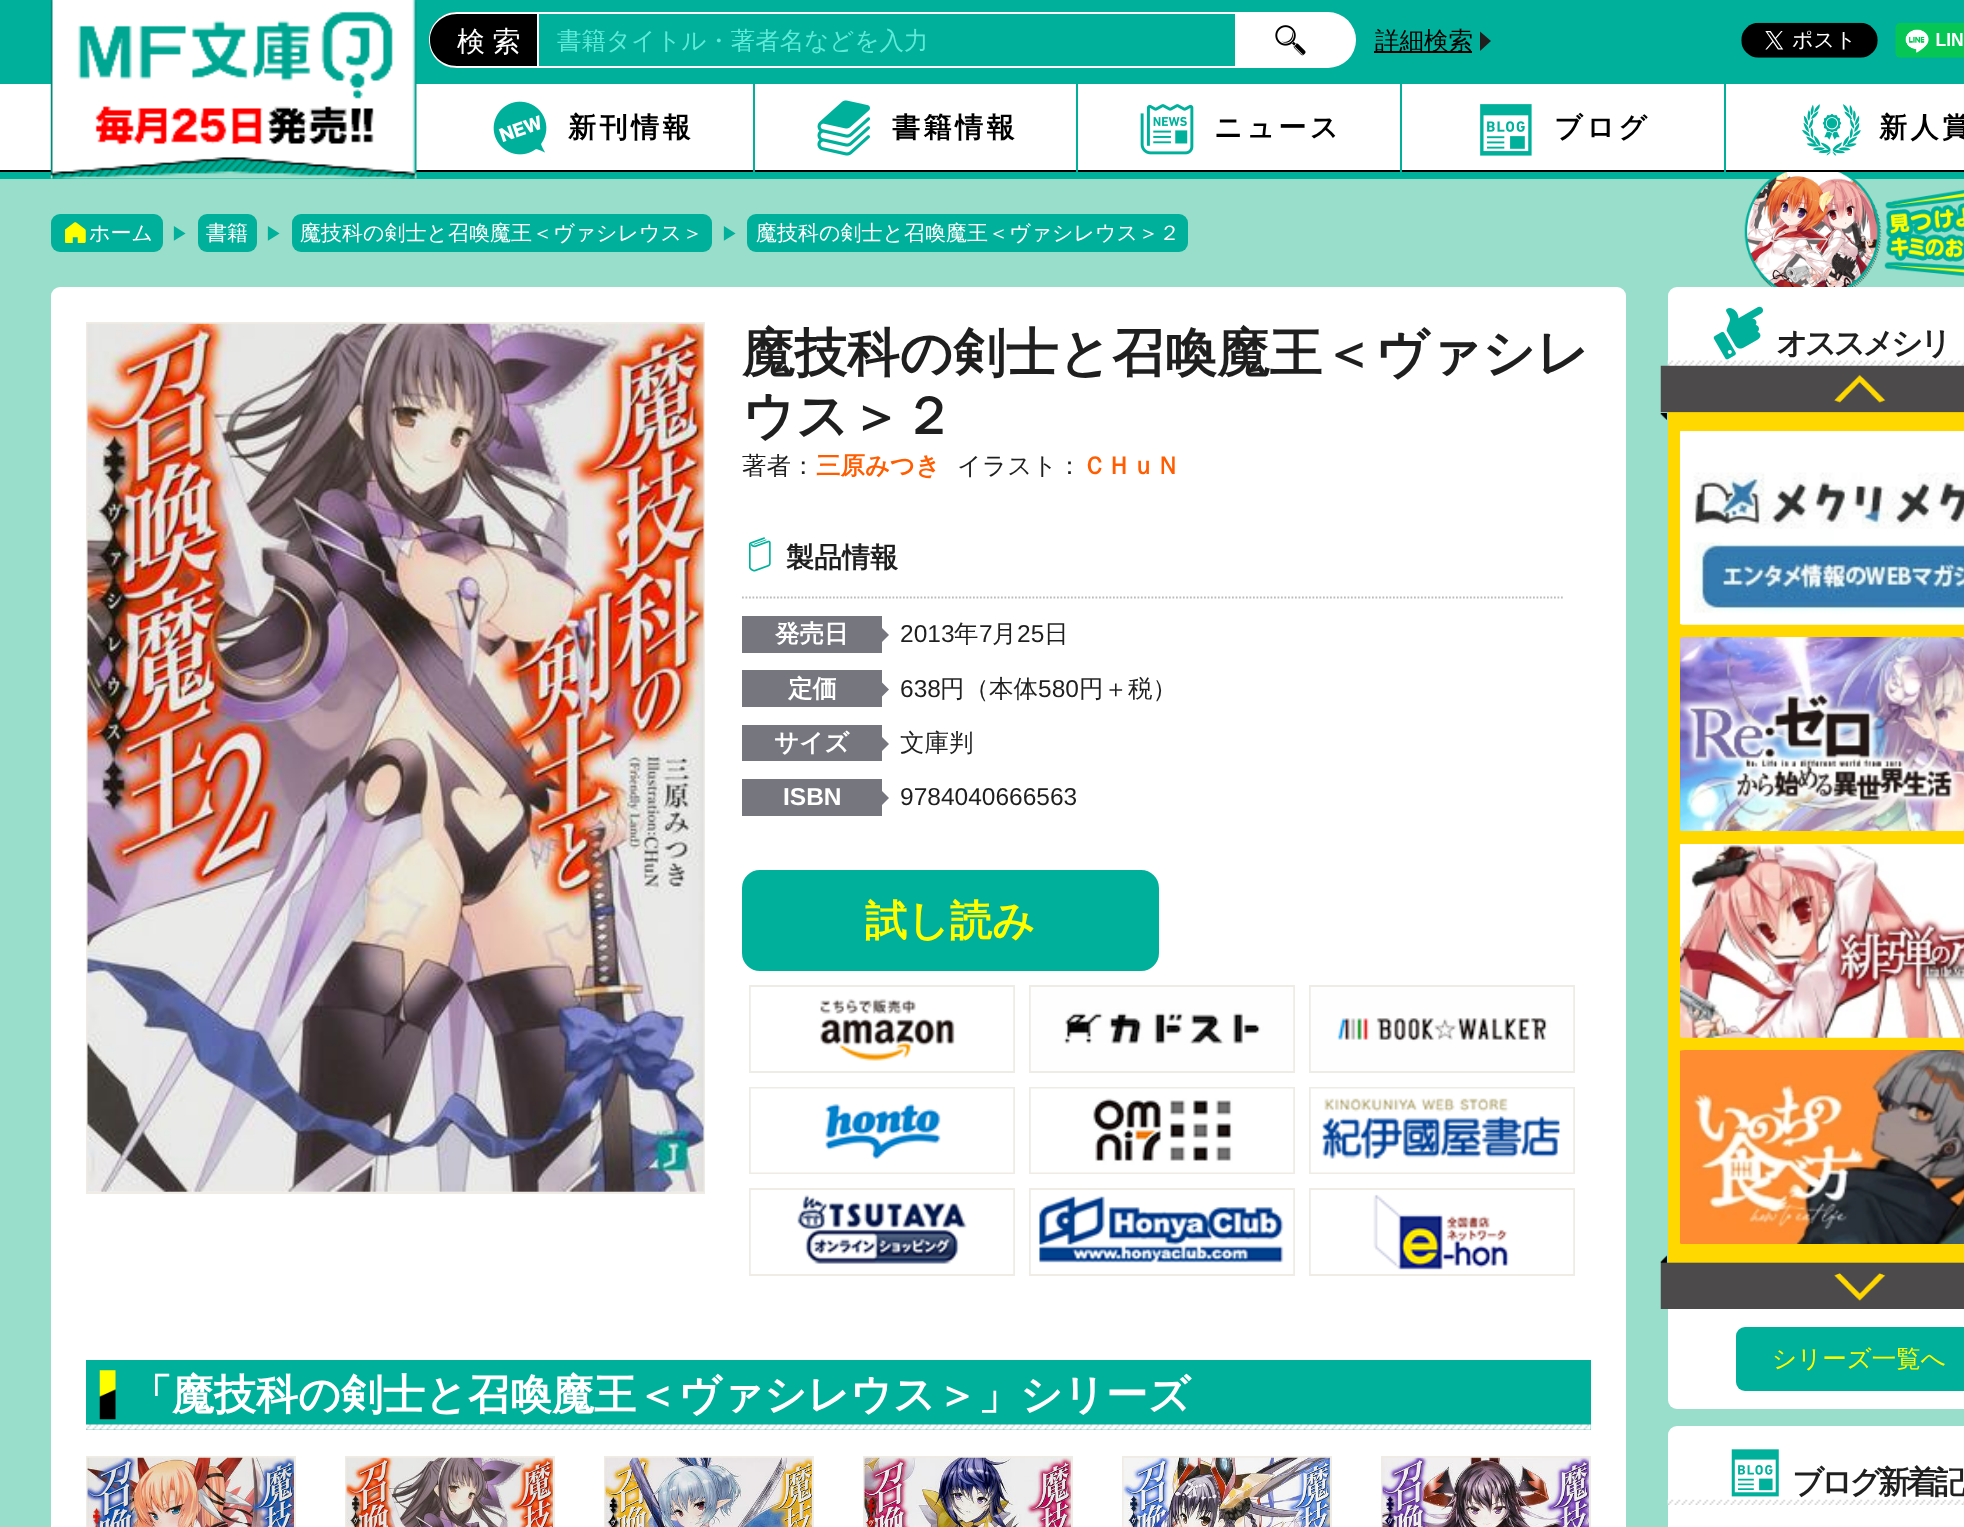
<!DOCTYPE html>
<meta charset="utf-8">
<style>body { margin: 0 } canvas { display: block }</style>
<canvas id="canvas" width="1964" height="1527"></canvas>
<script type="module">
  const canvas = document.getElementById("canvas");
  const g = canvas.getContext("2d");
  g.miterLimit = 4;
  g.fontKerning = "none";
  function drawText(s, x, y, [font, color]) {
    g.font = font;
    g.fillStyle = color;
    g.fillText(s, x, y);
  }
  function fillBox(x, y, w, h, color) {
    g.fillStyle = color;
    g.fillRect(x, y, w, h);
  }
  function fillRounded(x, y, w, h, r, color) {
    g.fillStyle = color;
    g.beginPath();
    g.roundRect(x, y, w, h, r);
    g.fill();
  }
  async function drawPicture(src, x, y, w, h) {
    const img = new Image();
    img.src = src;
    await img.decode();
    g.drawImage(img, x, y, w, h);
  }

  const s1 = ["500 28px WenQuanYi Zen Hei", "#FFFFFF"];
  const s2 = ["500 24.5px WenQuanYi Zen Hei", "#5DEBDA"];
  const s3 = ["500 24.5px WenQuanYi Zen Hei", "#000000"];
  const s4 = ["bold 28px WenQuanYi Zen Hei", "#000000"];
  const s5 = ["500 21px WenQuanYi Zen Hei", "#FFFFFF"];
  const s6 = ["500 18px WenQuanYi Zen Hei", "#00B09B"];
  const s7 = ["bold 52.5px WenQuanYi Zen Hei", "#1F1F1F"];
  const s8 = ["500 24.5px WenQuanYi Zen Hei", "#1F1F1F"];
  const s9 = ["bold 24.5px WenQuanYi Zen Hei", "#FF5D00"];
  const s10 = ["bold 28px WenQuanYi Zen Hei", "#1F1F1F"];
  const s11 = ["bold 24.5px WenQuanYi Zen Hei", "#FFFFFF"];
  const s12 = ["24.5px Liberation Sans", "#1F1F1F"];
  const s13 = ["bold 24.5px Liberation Sans", "#FFFFFF"];
  const s14 = ["bold 42px WenQuanYi Zen Hei", "#FFFF00"];
  const s15 = ["bold 42px WenQuanYi Zen Hei", "#FFFFFF"];
  const s16 = ["bold 31.5px WenQuanYi Zen Hei", "#1F1F1F"];
  const s17 = ["500 24.5px WenQuanYi Zen Hei", "#FFFF00"];

  fillBox(0, 0, 1964, 1527, "#99DECA");
  fillBox(0, 0, 1964, 179, "#00B09B");
  fillBox(0, 84, 1964, 86, "#FFFFFF");
  fillBox(0, 170, 1964, 2, "#000000");
  await drawPicture("pic1.png", 50, 0, 367, 179);
  g.beginPath();
  g.roundRect(429, 12, 108, 56, [28, 0, 0, 28]);
  g.fill();
  g.fillStyle = "#FFFFFF";
  g.beginPath();
  g.moveTo(457, 12);
  g.lineTo(537, 12);
  g.lineTo(537, 68);
  g.lineTo(457, 68);
  g.bezierCurveTo(441, 68, 429, 56, 429, 40);
  g.bezierCurveTo(429, 25, 441, 12, 457, 12);
  g.closePath();
  g.moveTo(457, 14);
  g.lineTo(537, 14);
  g.lineTo(537, 66);
  g.lineTo(457, 66);
  g.bezierCurveTo(442, 66, 430, 55, 430, 40);
  g.bezierCurveTo(430, 26, 442, 14, 457, 14);
  g.closePath();
  g.fill("evenodd");
  g.wordSpacing = "-1px";
  drawText("検 索", 457, 51, s1);
  g.strokeStyle = "#FFFFFF";
  g.lineWidth = 2;
  g.strokeRect(538, 13, 698, 54);
  g.wordSpacing = "0px";
  drawText("書籍タイトル・著者名などを入力", 557, 49, s2);
  g.fillStyle = "#FFFFFF";
  g.beginPath();
  g.roundRect(1237, 12, 119, 56, [0, 28, 28, 0]);
  g.fill();
  await drawPicture("pic2.png", 1275, 25, 31, 31);
  g.fillStyle = "#1F1F1F";
  g.beginPath();
  g.moveTo(1491, 41);
  g.lineTo(1480, 51);
  g.lineTo(1480, 31.5);
  g.closePath();
  g.fill();
  fillBox(1374, 51, 98, 2, "#000000");
  drawText("詳細検索", 1375, 49, s3);
  await drawPicture("pic3.png", 1741, 22, 137, 36);
  await drawPicture("pic4.png", 1895, 22, 69, 36);
  await drawPicture("pic5.png", 1744, 172, 138, 115);
  await drawPicture("pic6.png", 1884, 189, 80, 88);
  fillBox(753, 84, 2, 88, "#00B09B");
  await drawPicture("pic7.png", 493, 101, 54, 54);
  g.letterSpacing = "3.5px";
  drawText("新刊情報", 568, 137, s4);
  fillBox(1076, 84, 2, 88, "#00B09B");
  await drawPicture("pic8.png", 817, 100, 54, 56);
  drawText("書籍情報", 892, 137, s4);
  fillBox(1400, 84, 2, 88, "#00B09B");
  await drawPicture("pic9.png", 1140, 104, 54, 51);
  drawText("ニュース", 1214, 137, s4);
  fillBox(1724, 84, 2, 88, "#00B09B");
  await drawPicture("pic10.png", 1480, 104, 52, 52);
  drawText("ブログ", 1554, 137, s4);
  await drawPicture("pic11.png", 1802, 104, 59, 52);
  drawText("新人賞", 1879, 137, s4);
  fillRounded(51, 214, 112, 38, 9, "#00B09B");
  await drawPicture("pic12.png", 65, 222, 21, 21);
  g.letterSpacing = "0px";
  drawText("ホーム", 89, 240, s5);
  drawText("▶︎", 171, 240, s6);
  fillRounded(198, 214, 59, 38, 9, "#00B09B");
  drawText("書籍", 206, 240, s5);
  drawText("▶︎", 265, 240, s6);
  fillRounded(292, 214, 420, 38, 9, "#00B09B");
  drawText("魔技科の剣士と召喚魔王＜ヴァシレウス＞", 300, 240, s5);
  drawText("▶︎", 721, 240, s6);
  fillRounded(747, 214, 441, 38, 9, "#00B09B");
  drawText("魔技科の剣士と召喚魔王＜ヴァシレウス＞２", 756, 240, s5);
  fillRounded(51, 287, 1575, 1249, 9, "#FFFFFF");
  g.strokeStyle = "#EFEBE5";
  g.strokeRect(87, 323, 617, 870);
  await drawPicture("pic13.png", 87, 323, 617, 869);
  drawText("魔技科の剣士と召喚魔王＜ヴァシレ", 742, 371, s7);
  drawText("ウス＞２", 742, 434, s7);
  drawText("著者：", 742, 474, s8);
  drawText("三原みつき", 816, 474, s9);
  drawText("イラスト：", 957, 474, s8);
  drawText("ＣＨｕＮ", 1082, 474, s9);
  g.beginPath();
  g.moveTo(742, 597.5);
  g.lineTo(1564.5, 597.5);
  g.strokeStyle = "#BCBCBC";
  g.lineWidth = 1.8;
  g.setLineDash([1.75, 1.75]);
  g.stroke();
  await drawPicture("pic14.png", 749, 537, 22, 35);
  drawText("製品情報", 786, 567, s10);
  fillBox(742, 616, 140, 37, "#76777E");
  drawText("発売日", 775, 642, s11);
  g.fillStyle = "#76777E";
  g.beginPath();
  g.moveTo(882, 642);
  g.lineTo(882, 628);
  g.lineTo(889, 635);
  g.closePath();
  g.fill();
  drawText("2013", 900, 642, s12);
  drawText("年", 954, 642, s8);
  drawText("7", 979, 642, s12);
  drawText("月", 992, 642, s8);
  drawText("25", 1017, 642, s12);
  drawText("日", 1044, 642, s8);
  fillBox(742, 670, 140, 37, "#76777E");
  drawText("定価", 788, 697, s11);
  g.fillStyle = "#76777E";
  g.beginPath();
  g.moveTo(882, 696.5);
  g.lineTo(882, 682.5);
  g.lineTo(889, 689.5);
  g.closePath();
  g.fill();
  drawText("638", 900, 697, s12);
  drawText("円（本体", 940, 697, s8);
  drawText("580", 1038, 697, s12);
  drawText("円＋税）", 1079, 697, s8);
  fillBox(742, 725, 140, 36, "#76777E");
  drawText("サイズ", 774, 751, s11);
  g.fillStyle = "#76777E";
  g.beginPath();
  g.moveTo(882, 751);
  g.lineTo(882, 737);
  g.lineTo(889, 744);
  g.closePath();
  g.fill();
  drawText("文庫判", 900, 751, s8);
  fillBox(742, 779, 140, 37, "#76777E");
  drawText("ISBN", 783, 805, s13);
  g.fillStyle = "#76777E";
  g.beginPath();
  g.moveTo(882, 805);
  g.lineTo(882, 791);
  g.lineTo(889, 798);
  g.closePath();
  g.fill();
  drawText("9784040666563", 900, 805, s12);
  g.fillStyle = "#00B09B";
  g.beginPath();
  g.roundRect(743, 871, 415, 99, 17);
  g.fill();
  g.strokeStyle = "#00B09B";
  g.lineWidth = 2;
  g.setLineDash([]);
  g.stroke();
  drawText("試し読み", 865, 935, s14);
  g.strokeStyle = "#EFEBE5";
  g.strokeRect(750, 986, 264, 86);
  await drawPicture("pic15.png", 750, 987, 264, 84);
  g.strokeRect(1030, 986, 264, 86);
  await drawPicture("pic16.png", 1030, 987, 264, 84);
  g.strokeRect(1310, 986, 264, 86);
  await drawPicture("pic17.png", 1310, 987, 264, 84);
  g.strokeRect(750, 1088, 264, 85);
  await drawPicture("pic18.png", 750, 1088, 264, 85);
  g.strokeRect(1030, 1088, 264, 85);
  await drawPicture("pic19.png", 1030, 1088, 264, 85);
  g.strokeRect(1310, 1088, 264, 85);
  await drawPicture("pic20.png", 1310, 1088, 264, 85);
  g.strokeRect(750, 1189, 264, 86);
  await drawPicture("pic21.png", 750, 1190, 264, 84);
  g.strokeRect(1030, 1189, 264, 86);
  await drawPicture("pic22.png", 1030, 1190, 264, 84);
  g.strokeRect(1310, 1189, 264, 86);
  await drawPicture("pic23.png", 1310, 1190, 264, 84);
  fillBox(86, 1360, 1505, 70, "#00B09B");
  await drawPicture("pic24.png", 86, 1370, 1505, 60);
  drawText("「魔技科の剣士と召喚魔王＜ヴァシレウス＞」シリーズ", 130, 1409, s15);
  g.strokeRect(87, 1457, 208, 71);
  await drawPicture("pic25.png", 87, 1457, 207, 70);
  g.strokeRect(346, 1457, 208, 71);
  await drawPicture("pic26.png", 346, 1457, 207, 70);
  g.strokeRect(605, 1457, 208, 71);
  await drawPicture("pic27.png", 605, 1457, 207, 70);
  g.strokeRect(864, 1457, 208, 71);
  await drawPicture("pic28.png", 864, 1457, 207, 70);
  g.strokeRect(1123, 1457, 208, 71);
  await drawPicture("pic29.png", 1123, 1457, 207, 70);
  g.strokeRect(1382, 1457, 208, 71);
  await drawPicture("pic30.png", 1382, 1457, 207, 70);
  fillRounded(1668, 287, 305, 1122, 9, "#FFFFFF");
  await drawPicture("pic31.png", 1667, 360, 297, 6);
  await drawPicture("pic32.png", 1713, 306, 50, 54);
  g.letterSpacing = "-3.5px";
  drawText("オススメシリ", 1776, 354, s16);
  fillBox(1668, 412, 296, 851, "#FFD800");
  await drawPicture("pic33.png", 1660, 365, 304, 55);
  await drawPicture("pic34.png", 1680, 431, 284, 194);
  await drawPicture("pic35.png", 1680, 637, 284, 194);
  await drawPicture("pic36.png", 1680, 844, 284, 194);
  await drawPicture("pic37.png", 1680, 1050, 284, 194);
  await drawPicture("pic38.png", 1660, 1255, 304, 54);
  fillRounded(1736, 1327, 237, 64, 9, "#00B09B");
  g.letterSpacing = "0px";
  drawText("シリーズ一覧へ", 1772, 1367, s17);
  fillRounded(1668, 1426, 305, 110, 9, "#FFFFFF");
  await drawPicture("pic39.png", 1667, 1499, 297, 6);
  await drawPicture("pic40.png", 1731, 1449, 48, 48);
  g.letterSpacing = "-3.5px";
  drawText("ブログ新着記", 1792, 1493, s16);
</script>
